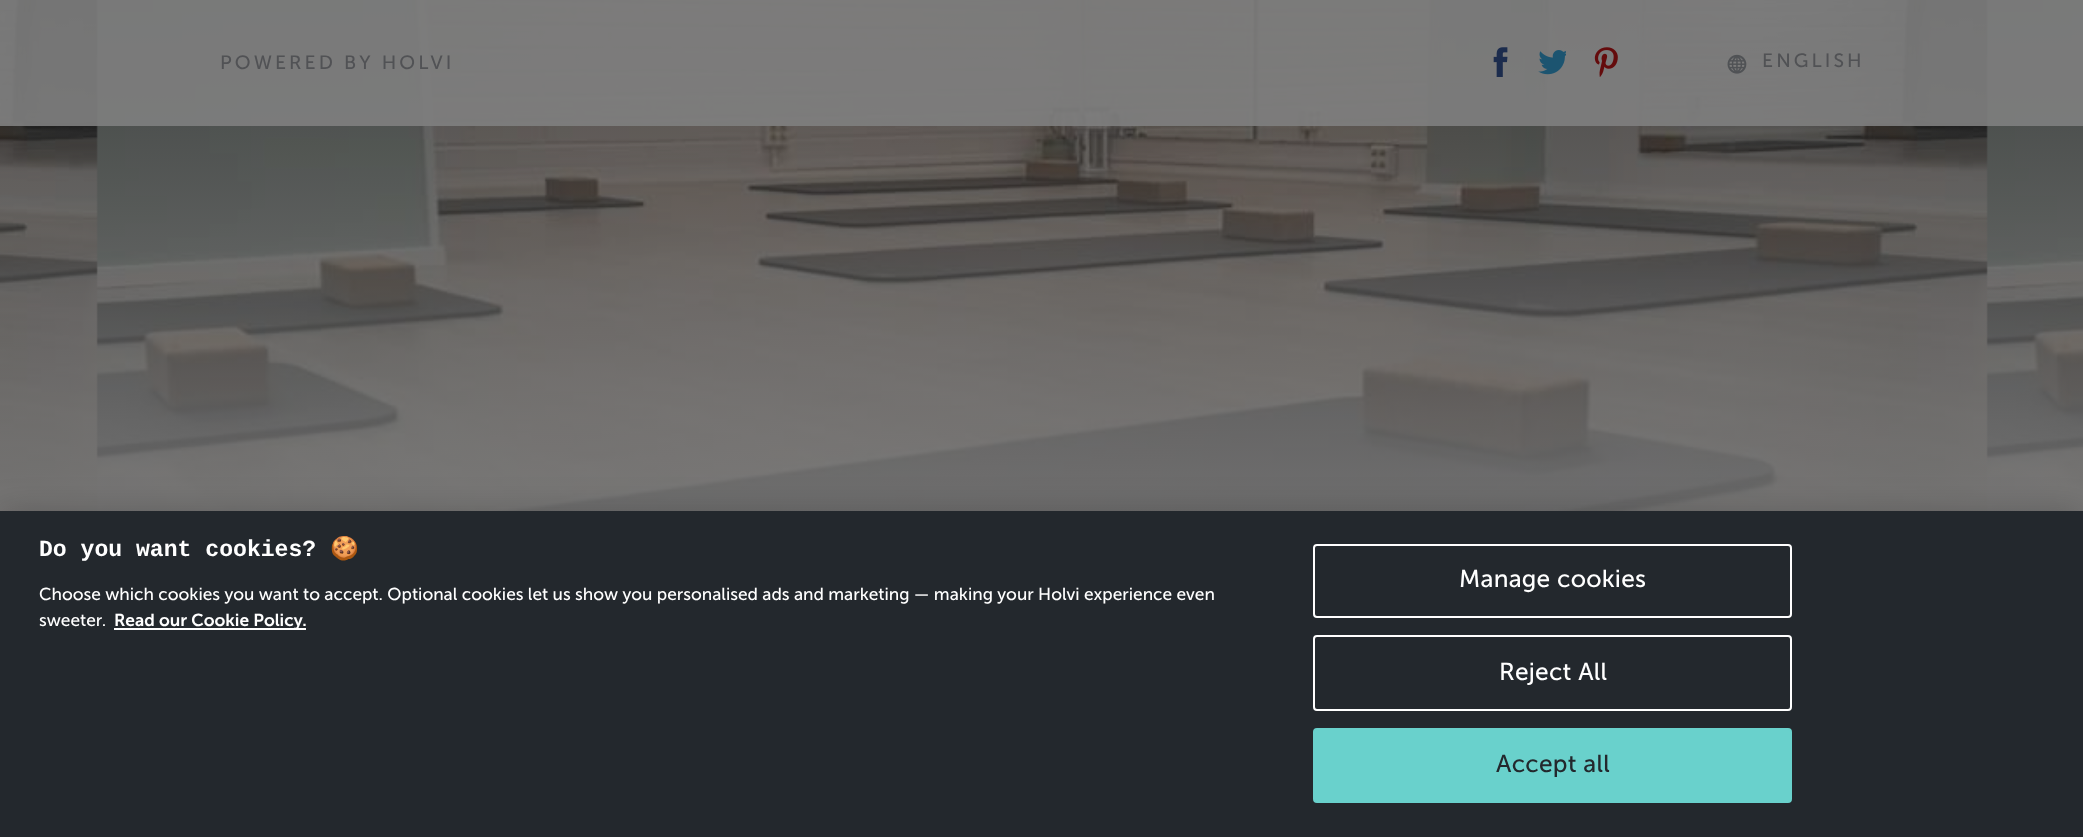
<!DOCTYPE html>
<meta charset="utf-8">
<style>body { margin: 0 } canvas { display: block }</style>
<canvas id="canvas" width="2083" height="837"></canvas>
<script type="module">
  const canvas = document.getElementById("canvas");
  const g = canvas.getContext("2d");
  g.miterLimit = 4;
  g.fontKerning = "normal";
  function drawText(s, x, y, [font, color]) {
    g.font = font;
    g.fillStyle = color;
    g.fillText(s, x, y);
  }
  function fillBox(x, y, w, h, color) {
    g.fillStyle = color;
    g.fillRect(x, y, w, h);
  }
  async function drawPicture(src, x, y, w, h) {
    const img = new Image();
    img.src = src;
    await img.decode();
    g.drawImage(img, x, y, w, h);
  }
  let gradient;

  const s1 = ["19.25px Museo Sans", "#515255"];
  const s2 = ["bold 23.1px Liberation Mono", "#FFFFFF"];
  const s3 = ["bold 23.1px Noto Color Emoji", "#FFFFFF"];
  const s4 = ["17.32px Museo Sans", "#FFFFFF"];
  const s5 = ["600 17.32px Museo Sans", "#FFFFFF"];
  const s6 = ["24.5px Museo Sans", "#FFFFFF"];
  const s7 = ["24.5px Museo Sans", "#23282D"];

  fillBox(0, 0, 2083, 837, "#FFFFFF");
  await drawPicture("pic1.png", 0, 0, 2083, 511);
  gradient = g.createLinearGradient(1042, 0, 1042, 714);
  gradient.addColorStop(0, "rgba(128, 128, 128, 0)");
  gradient.addColorStop(0.4, "rgba(128, 128, 128, 0.5)");
  gradient.addColorStop(0.58, "rgba(128, 128, 128, 0.7)");
  gradient.addColorStop(0.8, "rgba(128, 128, 128, 0.88)");
  gradient.addColorStop(0.89, "rgba(128, 128, 128, 0.95)");
  gradient.addColorStop(1, "#808080");
  g.fillStyle = gradient;
  g.fillRect(0, 12, 2083, 499);
  fillBox(0, 0, 2083, 126, "rgba(128, 128, 128, 0.9)");
  g.letterSpacing = "3.1px";
  drawText("POWERED BY HOLVI", 220, 69, s1);
  await drawPicture("pic2.png", 1493, 47, 15, 30);
  await drawPicture("pic3.png", 1538, 50, 28, 25);
  await drawPicture("pic4.png", 1594, 47, 24, 30);
  await drawPicture("pic5.png", 1727, 54, 20, 20);
  drawText("ENGLISH", 1762, 67, s1);
  g.fillStyle = "rgba(0, 0, 0, 0.2)";
  g.filter = "blur(16px)";
  g.beginPath();
  g.rect(0, 511, 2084, 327);
  g.fill();
  g.filter = "none";
  fillBox(0, 511, 2083, 326, "#23282D");
  g.letterSpacing = "0px";
  drawText("Do you want cookies?", 39, 556, s2);
  g.save();
  g.beginPath();
  g.rect(39, 536, 1212, 98);
  g.clip();
  drawText("🍪", 330, 556, s3);
  g.restore();
  g.wordSpacing = "-0.1px";
  drawText("Choose which cookies you want to accept. Optional cookies let us show you personalised ads and marketing — making your Holvi experience even", 39, 600, s4);
  g.wordSpacing = "0px";
  drawText("sweeter.", 39, 626, s4);
  fillBox(114, 628, 192, 2, "#FFFFFF");
  drawText("Read our Cookie Policy.", 114, 626, s5);
  g.beginPath();
  g.roundRect(1314, 545, 477, 72, 3);
  g.strokeStyle = "#FFFFFF";
  g.lineWidth = 2;
  g.stroke();
  g.letterSpacing = "0.25px";
  drawText("Manage cookies", 1459, 587, s6);
  g.beginPath();
  g.roundRect(1314, 636, 477, 74, 3);
  g.stroke();
  drawText("Reject All", 1499, 680, s6);
  g.fillStyle = "#69D1CC";
  g.beginPath();
  g.roundRect(1314, 729, 477, 73, 3);
  g.fill();
  g.strokeStyle = "#69D1CC";
  g.stroke();
  drawText("Accept all", 1496, 772, s7);
</script>
